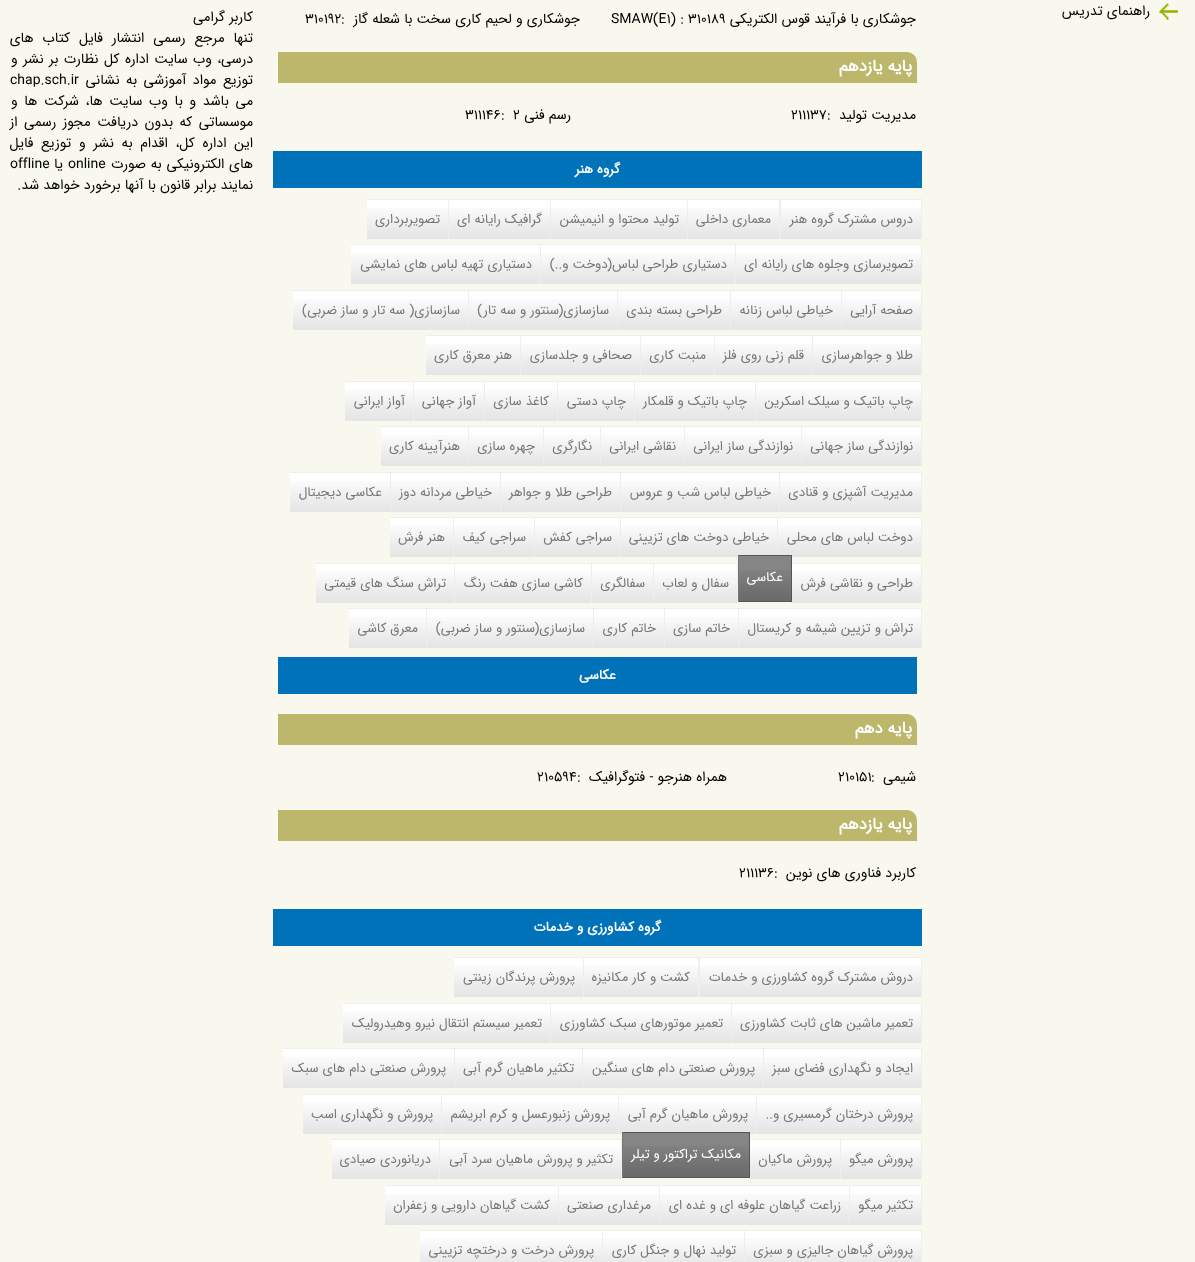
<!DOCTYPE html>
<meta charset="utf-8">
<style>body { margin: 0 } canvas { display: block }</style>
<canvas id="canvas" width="1195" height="1262"></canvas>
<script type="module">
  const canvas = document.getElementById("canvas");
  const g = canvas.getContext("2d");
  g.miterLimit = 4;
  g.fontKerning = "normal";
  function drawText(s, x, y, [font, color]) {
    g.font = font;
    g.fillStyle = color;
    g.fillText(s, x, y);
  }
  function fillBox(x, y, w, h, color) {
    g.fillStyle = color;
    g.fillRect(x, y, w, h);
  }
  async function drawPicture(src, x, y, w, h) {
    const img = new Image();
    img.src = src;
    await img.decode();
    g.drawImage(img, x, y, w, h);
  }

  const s1 = ["14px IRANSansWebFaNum", "#000000"];
  const s2 = ["bold 16.5px IRANSansWebFaNum", "#FFFFFF"];
  const s3 = ["bold 13.5px IRANSansWebFaNum", "#FFFFFF"];
  const s4 = ["13.25px IRANSansWebFaNum", "#777777"];
  const s5 = ["13.25px IRANSansWebFaNum", "#FFFFFF"];

  fillBox(0, 0, 1195, 1262, "#F8F8EE");
  await drawPicture("pic1.png", 1159, 3, 19, 17);
  g.direction = "rtl";
  drawText("راهنمای تدریس", 1150, 15, s1);
  drawText("کاربر گرامی", 253, 21, s1);
  g.wordSpacing = "4.75px";
  drawText("تنها مرجع رسمی انتشار فایل کتاب های", 253, 42, s1);
  g.wordSpacing = "1.25px";
  drawText("درسی، وب سایت اداره کل نظارت بر نشر و", 253, 63, s1);
  g.wordSpacing = "2.25px";
  drawText("توزیع مواد آموزشی به نشانی", 253, 84, s1);
  g.wordSpacing = "0px";
  g.direction = "ltr";
  drawText("chap.sch.ir", 10, 84, s1);
  g.wordSpacing = "2.5px";
  g.direction = "rtl";
  drawText("می باشد و با وب سایت ها، شرکت ها و", 253, 105, s1);
  g.wordSpacing = "2.25px";
  drawText("موسساتی که بدون دریافت مجوز رسمی از", 253, 126, s1);
  g.wordSpacing = "3.5px";
  drawText("این اداره کل، اقدام به نشر و توزیع فایل", 253, 147, s1);
  g.wordSpacing = "0.5px";
  drawText("های الکترونیکی به صورت", 253, 168, s1);
  g.wordSpacing = "0px";
  g.direction = "ltr";
  drawText("online", 68, 168, s1);
  g.direction = "rtl";
  drawText("یا", 63, 168, s1);
  g.direction = "ltr";
  drawText("offline", 10, 168, s1);
  g.direction = "rtl";
  drawText("نمایند برابر قانون با آنها برخورد خواهد شد.", 253, 189, s1);
  drawText("جوشکاری با فرآیند قوس الکتریکی", 916, 23, s1);
  g.direction = "ltr";
  drawText("SMAW(E1) : 310189", 611, 23, s1);
  g.direction = "rtl";
  drawText("جوشکاری و لحیم کاری سخت با شعله گاز", 580, 23, s1);
  g.direction = "ltr";
  drawText(":", 341, 23, s1);
  drawText("310192", 305, 23, s1);
  g.fillStyle = "#BDB76B";
  g.beginPath();
  g.roundRect(278, 52, 639, 31, [0, 10, 0, 0]);
  g.fill();
  g.direction = "rtl";
  drawText("پایه یازدهم", 912, 71, s2);
  drawText("مدیریت تولید", 916, 119, s1);
  g.direction = "ltr";
  drawText(":", 827, 119, s1);
  drawText("211137", 791, 119, s1);
  g.direction = "rtl";
  drawText("رسم فنی", 571, 119, s1);
  g.direction = "ltr";
  drawText("2", 513, 119, s1);
  drawText(":", 501, 119, s1);
  drawText("311146", 465, 119, s1);
  fillBox(273, 151, 649, 37, "#0072B9");
  g.direction = "rtl";
  drawText("گروه هنر", 620, 173, s3);
  fillBox(781, 200, 140, 8, "#FFFFFF");
  await drawPicture("pic2.png", 781, 208, 140, 31);
  fillBox(367, 199, 555, 1, "#EEEEEE");
  fillBox(921, 199, 1, 40, "#EEEEEE");
  fillBox(779, 199, 2, 40, "#EEEEEE");
  drawText("دروس مشترک گروه هنر", 913, 223, s4);
  fillBox(688, 200, 91, 8, "#FFFFFF");
  await drawPicture("pic3.png", 688, 208, 91, 31);
  drawText("معماری داخلی", 771, 223, s4);
  fillBox(551, 200, 136, 8, "#FFFFFF");
  await drawPicture("pic4.png", 551, 208, 136, 31);
  fillBox(687, 199, 1, 40, "#EEEEEE");
  drawText("تولید محتوا و انیمیشن", 679, 223, s4);
  fillBox(449, 200, 101, 8, "#FFFFFF");
  await drawPicture("pic5.png", 449, 208, 101, 31);
  fillBox(550, 199, 1, 40, "#EEEEEE");
  drawText("گرافیک رایانه ای", 542, 223, s4);
  fillBox(367, 200, 81, 8, "#FFFFFF");
  await drawPicture("pic6.png", 367, 208, 81, 31);
  fillBox(448, 199, 1, 40, "#EEEEEE");
  drawText("تصویربرداری", 440, 223, s4);
  fillBox(736, 245, 185, 8, "#FFFFFF");
  await drawPicture("pic7.png", 736, 253, 185, 31);
  fillBox(351, 244, 571, 1, "#EEEEEE");
  fillBox(921, 244, 1, 40, "#EEEEEE");
  drawText("تصویرسازی وجلوه های رایانه ای", 913, 268, s4);
  fillBox(541, 245, 194, 8, "#FFFFFF");
  await drawPicture("pic8.png", 541, 253, 194, 31);
  fillBox(735, 244, 1, 40, "#EEEEEE");
  drawText("دستیاری طراحی لباس(دوخت و..)", 727, 268, s4);
  fillBox(351, 245, 189, 8, "#FFFFFF");
  await drawPicture("pic9.png", 351, 253, 189, 31);
  fillBox(540, 244, 1, 40, "#EEEEEE");
  drawText("دستیاری تهیه لباس های نمایشی", 532, 268, s4);
  fillBox(842, 291, 79, 8, "#FFFFFF");
  await drawPicture("pic10.png", 842, 299, 79, 31);
  fillBox(293, 290, 629, 1, "#EEEEEE");
  fillBox(921, 290, 1, 40, "#EEEEEE");
  drawText("صفحه آرایی", 913, 314, s4);
  fillBox(731, 291, 110, 8, "#FFFFFF");
  await drawPicture("pic11.png", 731, 299, 110, 31);
  fillBox(841, 290, 1, 40, "#EEEEEE");
  drawText("خیاطی لباس زنانه", 833, 314, s4);
  fillBox(618, 291, 112, 8, "#FFFFFF");
  await drawPicture("pic12.png", 618, 299, 112, 31);
  fillBox(730, 290, 1, 40, "#EEEEEE");
  drawText("طراحی بسته بندی", 722, 314, s4);
  fillBox(469, 291, 148, 8, "#FFFFFF");
  await drawPicture("pic13.png", 469, 299, 148, 31);
  fillBox(617, 290, 1, 40, "#EEEEEE");
  drawText("سازسازی(سنتور و سه تار)", 609, 314, s4);
  fillBox(293, 291, 175, 8, "#FFFFFF");
  await drawPicture("pic14.png", 293, 299, 175, 31);
  fillBox(468, 290, 1, 40, "#EEEEEE");
  drawText("سازسازی( سه تار و ساز ضربی)", 460, 314, s4);
  fillBox(813, 336, 108, 8, "#FFFFFF");
  await drawPicture("pic15.png", 813, 344, 108, 31);
  fillBox(426, 335, 496, 1, "#EEEEEE");
  fillBox(921, 335, 1, 40, "#EEEEEE");
  drawText("طلا و جواهرسازی", 913, 359, s4);
  fillBox(715, 336, 97, 8, "#FFFFFF");
  await drawPicture("pic16.png", 715, 344, 97, 31);
  fillBox(812, 335, 1, 40, "#EEEEEE");
  drawText("قلم زنی روی فلز", 804, 359, s4);
  fillBox(641, 336, 73, 8, "#FFFFFF");
  await drawPicture("pic17.png", 641, 344, 73, 31);
  fillBox(714, 335, 1, 40, "#EEEEEE");
  drawText("منبت کاری", 706, 359, s4);
  fillBox(521, 336, 119, 8, "#FFFFFF");
  await drawPicture("pic18.png", 521, 344, 119, 31);
  fillBox(640, 335, 1, 40, "#EEEEEE");
  drawText("صحافی و جلدسازی", 632, 359, s4);
  fillBox(426, 336, 94, 8, "#FFFFFF");
  await drawPicture("pic19.png", 426, 344, 94, 31);
  fillBox(520, 335, 1, 40, "#EEEEEE");
  drawText("هنر معرق کاری", 512, 359, s4);
  fillBox(756, 382, 165, 8, "#FFFFFF");
  await drawPicture("pic20.png", 756, 390, 165, 31);
  fillBox(345, 381, 577, 1, "#EEEEEE");
  fillBox(921, 381, 1, 40, "#EEEEEE");
  drawText("چاپ باتیک و سیلک اسکرین", 913, 405, s4);
  fillBox(635, 382, 120, 8, "#FFFFFF");
  await drawPicture("pic21.png", 635, 390, 120, 31);
  fillBox(755, 381, 1, 40, "#EEEEEE");
  drawText("چاپ باتیک و قلمکار", 747, 405, s4);
  fillBox(558, 382, 76, 8, "#FFFFFF");
  await drawPicture("pic22.png", 558, 390, 76, 31);
  fillBox(634, 381, 1, 40, "#EEEEEE");
  drawText("چاپ دستی", 626, 405, s4);
  fillBox(485, 382, 72, 8, "#FFFFFF");
  await drawPicture("pic23.png", 485, 390, 72, 31);
  fillBox(557, 381, 1, 40, "#EEEEEE");
  drawText("کاغذ سازی", 549, 405, s4);
  fillBox(414, 382, 70, 8, "#FFFFFF");
  await drawPicture("pic24.png", 414, 390, 70, 31);
  fillBox(484, 381, 1, 40, "#EEEEEE");
  drawText("آواز جهانی", 476, 405, s4);
  fillBox(345, 382, 68, 8, "#FFFFFF");
  await drawPicture("pic25.png", 345, 390, 68, 31);
  fillBox(413, 381, 1, 40, "#EEEEEE");
  drawText("آواز ایرانی", 405, 405, s4);
  fillBox(802, 427, 119, 8, "#FFFFFF");
  await drawPicture("pic18.png", 802, 435, 119, 31);
  fillBox(381, 426, 541, 1, "#EEEEEE");
  fillBox(921, 426, 1, 40, "#EEEEEE");
  drawText("نوازندگی ساز جهانی", 913, 450, s4);
  fillBox(685, 427, 116, 8, "#FFFFFF");
  await drawPicture("pic26.png", 685, 435, 116, 31);
  fillBox(801, 426, 1, 40, "#EEEEEE");
  drawText("نوازندگی ساز ایرانی", 793, 450, s4);
  fillBox(601, 427, 83, 8, "#FFFFFF");
  await drawPicture("pic27.png", 601, 435, 83, 31);
  fillBox(684, 426, 1, 40, "#EEEEEE");
  drawText("نقاشی ایرانی", 676, 450, s4);
  fillBox(544, 427, 56, 8, "#FFFFFF");
  await drawPicture("pic28.png", 544, 435, 56, 31);
  fillBox(600, 426, 1, 40, "#EEEEEE");
  drawText("نگارگری", 592, 450, s4);
  fillBox(469, 427, 74, 8, "#FFFFFF");
  await drawPicture("pic29.png", 469, 435, 74, 31);
  fillBox(543, 426, 1, 40, "#EEEEEE");
  drawText("چهره سازی", 535, 450, s4);
  fillBox(381, 427, 87, 8, "#FFFFFF");
  await drawPicture("pic30.png", 381, 435, 87, 31);
  fillBox(468, 426, 1, 40, "#EEEEEE");
  drawText("هنرآیینه کاری", 460, 450, s4);
  fillBox(780, 473, 141, 8, "#FFFFFF");
  await drawPicture("pic31.png", 780, 481, 141, 31);
  fillBox(290, 472, 632, 1, "#EEEEEE");
  fillBox(921, 472, 1, 40, "#EEEEEE");
  drawText("مدیریت آشپزی و قنادی", 913, 496, s4);
  fillBox(621, 473, 158, 8, "#FFFFFF");
  await drawPicture("pic32.png", 621, 481, 158, 31);
  fillBox(779, 472, 1, 40, "#EEEEEE");
  drawText("خیاطی لباس شب و عروس", 771, 496, s4);
  fillBox(501, 473, 119, 8, "#FFFFFF");
  await drawPicture("pic18.png", 501, 481, 119, 31);
  fillBox(620, 472, 1, 40, "#EEEEEE");
  drawText("طراحی طلا و جواهر", 612, 496, s4);
  fillBox(391, 473, 109, 8, "#FFFFFF");
  await drawPicture("pic33.png", 391, 481, 109, 31);
  fillBox(500, 472, 1, 40, "#EEEEEE");
  drawText("خیاطی مردانه دوز", 492, 496, s4);
  fillBox(290, 473, 100, 8, "#FFFFFF");
  await drawPicture("pic34.png", 290, 481, 100, 31);
  fillBox(390, 472, 1, 40, "#EEEEEE");
  drawText("عکاسی دیجیتال", 382, 496, s4);
  fillBox(778, 518, 143, 8, "#FFFFFF");
  await drawPicture("pic35.png", 778, 526, 143, 31);
  fillBox(390, 517, 532, 1, "#EEEEEE");
  fillBox(921, 517, 1, 40, "#EEEEEE");
  drawText("دوخت لباس های محلی", 913, 541, s4);
  fillBox(621, 518, 156, 8, "#FFFFFF");
  await drawPicture("pic36.png", 621, 526, 156, 31);
  fillBox(777, 517, 1, 40, "#EEEEEE");
  drawText("خیاطی دوخت های تزیینی", 769, 541, s4);
  fillBox(535, 518, 85, 8, "#FFFFFF");
  await drawPicture("pic37.png", 535, 526, 85, 31);
  fillBox(620, 517, 1, 40, "#EEEEEE");
  drawText("سراجی کفش", 612, 541, s4);
  fillBox(454, 518, 80, 8, "#FFFFFF");
  await drawPicture("pic38.png", 454, 526, 80, 31);
  fillBox(534, 517, 1, 40, "#EEEEEE");
  drawText("سراجی کیف", 526, 541, s4);
  fillBox(390, 518, 63, 8, "#FFFFFF");
  await drawPicture("pic39.png", 390, 526, 63, 31);
  fillBox(453, 517, 1, 40, "#EEEEEE");
  drawText("هنر فرش", 445, 541, s4);
  fillBox(792, 564, 129, 8, "#FFFFFF");
  await drawPicture("pic40.png", 792, 572, 129, 31);
  fillBox(792, 563, 130, 1, "#EEEEEE");
  fillBox(921, 563, 1, 40, "#EEEEEE");
  drawText("طراحی و نقاشی فرش", 913, 587, s4);
  fillBox(739, 556, 52, 14, "#858585");
  await drawPicture("pic41.png", 739, 570, 52, 31);
  fillBox(738, 555, 54, 1, "#555555");
  fillBox(791, 555, 1, 47, "#555555");
  fillBox(738, 601, 54, 1, "#555555");
  fillBox(738, 555, 1, 47, "#777777");
  drawText("عکاسی", 783, 581, s5);
  fillBox(654, 564, 83, 8, "#FFFFFF");
  await drawPicture("pic27.png", 654, 572, 83, 31);
  fillBox(316, 563, 422, 1, "#EEEEEE");
  fillBox(737, 563, 1, 40, "#EEEEEE");
  drawText("سفال و لعاب", 729, 587, s4);
  fillBox(592, 564, 61, 8, "#FFFFFF");
  await drawPicture("pic42.png", 592, 572, 61, 31);
  fillBox(653, 563, 1, 40, "#EEEEEE");
  drawText("سفالگری", 645, 587, s4);
  fillBox(455, 564, 136, 8, "#FFFFFF");
  await drawPicture("pic4.png", 455, 572, 136, 31);
  fillBox(591, 563, 1, 40, "#EEEEEE");
  drawText("کاشی سازی هفت رنگ", 583, 587, s4);
  fillBox(316, 564, 138, 8, "#FFFFFF");
  await drawPicture("pic43.png", 316, 572, 138, 31);
  fillBox(454, 563, 1, 40, "#EEEEEE");
  drawText("تراش سنگ های قیمتی", 446, 587, s4);
  fillBox(739, 609, 182, 8, "#FFFFFF");
  await drawPicture("pic44.png", 739, 617, 182, 31);
  fillBox(349, 608, 573, 1, "#EEEEEE");
  fillBox(921, 608, 1, 40, "#EEEEEE");
  drawText("تراش و تزیین شیشه و کریستال", 913, 632, s4);
  fillBox(665, 609, 73, 8, "#FFFFFF");
  await drawPicture("pic17.png", 665, 617, 73, 31);
  fillBox(738, 608, 1, 40, "#EEEEEE");
  drawText("خاتم سازی", 730, 632, s4);
  fillBox(594, 609, 70, 8, "#FFFFFF");
  await drawPicture("pic24.png", 594, 617, 70, 31);
  fillBox(664, 608, 1, 40, "#EEEEEE");
  drawText("خاتم کاری", 656, 632, s4);
  fillBox(427, 609, 166, 8, "#FFFFFF");
  await drawPicture("pic45.png", 427, 617, 166, 31);
  fillBox(593, 608, 1, 40, "#EEEEEE");
  drawText("سازسازی(سنتور و ساز ضربی)", 585, 632, s4);
  fillBox(349, 609, 77, 8, "#FFFFFF");
  await drawPicture("pic46.png", 349, 617, 77, 31);
  fillBox(426, 608, 1, 40, "#EEEEEE");
  drawText("معرق کاشی", 418, 632, s4);
  fillBox(278, 657, 639, 37, "#0072B9");
  drawText("عکاسی", 616, 679, s3);
  g.fillStyle = "#BDB76B";
  g.beginPath();
  g.roundRect(278, 714, 639, 31, [0, 10, 0, 0]);
  g.fill();
  drawText("پایه دهم", 912, 733, s2);
  drawText("شیمی", 916, 781, s1);
  g.direction = "ltr";
  drawText(":", 871, 781, s1);
  drawText("210151", 838, 781, s1);
  g.direction = "rtl";
  drawText("همراه هنرجو - فتوگرافیک", 727, 781, s1);
  g.direction = "ltr";
  drawText(":", 577, 781, s1);
  drawText("210594", 537, 781, s1);
  g.fillStyle = "#BDB76B";
  g.beginPath();
  g.roundRect(278, 810, 639, 31, [0, 10, 0, 0]);
  g.fill();
  g.direction = "rtl";
  drawText("پایه یازدهم", 912, 829, s2);
  drawText("کاربرد فناوری های نوین", 916, 877, s1);
  g.direction = "ltr";
  drawText(":", 774, 877, s1);
  drawText("211136", 739, 877, s1);
  fillBox(273, 909, 649, 37, "#0072B9");
  g.direction = "rtl";
  drawText("گروه کشاورزی و خدمات", 661, 931, s3);
  fillBox(700, 958, 221, 8, "#FFFFFF");
  await drawPicture("pic47.png", 700, 966, 221, 31);
  fillBox(454, 957, 468, 1, "#EEEEEE");
  fillBox(921, 957, 1, 40, "#EEEEEE");
  fillBox(698, 957, 2, 40, "#EEEEEE");
  drawText("دروش مشترک گروه کشاورزی و خدمات", 913, 981, s4);
  fillBox(584, 958, 114, 8, "#FFFFFF");
  await drawPicture("pic48.png", 584, 966, 114, 31);
  drawText("کشت و کار مکانیزه", 690, 981, s4);
  fillBox(454, 958, 129, 8, "#FFFFFF");
  await drawPicture("pic40.png", 454, 966, 129, 31);
  fillBox(583, 957, 1, 40, "#EEEEEE");
  drawText("پرورش پرندگان زینتی", 575, 981, s4);
  fillBox(732, 1004, 189, 8, "#FFFFFF");
  await drawPicture("pic9.png", 732, 1012, 189, 31);
  fillBox(343, 1003, 579, 1, "#EEEEEE");
  fillBox(921, 1003, 1, 40, "#EEEEEE");
  drawText("تعمیر ماشین های ثابت کشاورزی", 913, 1027, s4);
  fillBox(551, 1004, 180, 8, "#FFFFFF");
  await drawPicture("pic49.png", 551, 1012, 180, 31);
  fillBox(731, 1003, 1, 40, "#EEEEEE");
  drawText("تعمیر موتورهای سبک کشاورزی", 723, 1027, s4);
  fillBox(343, 1004, 207, 8, "#FFFFFF");
  await drawPicture("pic50.png", 343, 1012, 207, 31);
  fillBox(550, 1003, 1, 40, "#EEEEEE");
  drawText("تعمیر سیستم انتقال نیرو وهیدرولیک", 542, 1027, s4);
  fillBox(764, 1049, 157, 8, "#FFFFFF");
  await drawPicture("pic51.png", 764, 1057, 157, 31);
  fillBox(283, 1048, 639, 1, "#EEEEEE");
  fillBox(921, 1048, 1, 40, "#EEEEEE");
  drawText("ایجاد و نگهداری فضای سبز", 913, 1072, s4);
  fillBox(583, 1049, 180, 8, "#FFFFFF");
  await drawPicture("pic49.png", 583, 1057, 180, 31);
  fillBox(763, 1048, 1, 40, "#EEEEEE");
  drawText("پرورش صنعتی دام های سنگین", 755, 1072, s4);
  fillBox(455, 1049, 127, 8, "#FFFFFF");
  await drawPicture("pic52.png", 455, 1057, 127, 31);
  fillBox(582, 1048, 1, 40, "#EEEEEE");
  drawText("تکثیر ماهیان گرم آبی", 574, 1072, s4);
  fillBox(283, 1049, 171, 8, "#FFFFFF");
  await drawPicture("pic53.png", 283, 1057, 171, 31);
  fillBox(454, 1048, 1, 40, "#EEEEEE");
  drawText("پرورش صنعتی دام های سبک", 446, 1072, s4);
  fillBox(757, 1095, 164, 8, "#FFFFFF");
  await drawPicture("pic54.png", 757, 1103, 164, 31);
  fillBox(303, 1094, 619, 1, "#EEEEEE");
  fillBox(921, 1094, 1, 40, "#EEEEEE");
  drawText("پرورش درختان گرمسیری و..", 913, 1118, s4);
  fillBox(619, 1095, 137, 8, "#FFFFFF");
  await drawPicture("pic55.png", 619, 1103, 137, 31);
  fillBox(756, 1094, 1, 40, "#EEEEEE");
  drawText("پرورش ماهیان گرم آبی", 748, 1118, s4);
  fillBox(442, 1095, 176, 8, "#FFFFFF");
  await drawPicture("pic56.png", 442, 1103, 176, 31);
  fillBox(618, 1094, 1, 40, "#EEEEEE");
  drawText("پرورش زنبورعسل و کرم ابریشم", 610, 1118, s4);
  fillBox(303, 1095, 138, 8, "#FFFFFF");
  await drawPicture("pic43.png", 303, 1103, 138, 31);
  fillBox(441, 1094, 1, 40, "#EEEEEE");
  drawText("پرورش و نگهداری اسب", 433, 1118, s4);
  fillBox(841, 1140, 80, 8, "#FFFFFF");
  await drawPicture("pic38.png", 841, 1148, 80, 31);
  fillBox(750, 1139, 172, 1, "#EEEEEE");
  fillBox(921, 1139, 1, 40, "#EEEEEE");
  drawText("پرورش میگو", 913, 1163, s4);
  fillBox(750, 1140, 90, 8, "#FFFFFF");
  await drawPicture("pic57.png", 750, 1148, 90, 31);
  fillBox(840, 1139, 1, 40, "#EEEEEE");
  drawText("پرورش ماکیان", 832, 1163, s4);
  fillBox(623, 1133, 126, 13, "#858585");
  await drawPicture("pic58.png", 623, 1146, 126, 31);
  fillBox(622, 1132, 128, 1, "#555555");
  fillBox(749, 1132, 1, 46, "#555555");
  fillBox(622, 1177, 128, 1, "#555555");
  fillBox(622, 1132, 1, 46, "#777777");
  drawText("مکانیک تراکتور و تیلر", 741, 1158, s5);
  fillBox(440, 1140, 181, 8, "#FFFFFF");
  await drawPicture("pic59.png", 440, 1148, 181, 31);
  fillBox(332, 1139, 290, 1, "#EEEEEE");
  fillBox(621, 1139, 1, 40, "#EEEEEE");
  drawText("تکثیر و پرورش ماهیان سرد آبی", 613, 1163, s4);
  fillBox(332, 1140, 107, 8, "#FFFFFF");
  await drawPicture("pic60.png", 332, 1148, 107, 31);
  fillBox(439, 1139, 1, 40, "#EEEEEE");
  drawText("دریانوردی صیادی", 431, 1163, s4);
  fillBox(850, 1186, 71, 8, "#FFFFFF");
  await drawPicture("pic61.png", 850, 1194, 71, 31);
  fillBox(385, 1185, 537, 1, "#EEEEEE");
  fillBox(921, 1185, 1, 40, "#EEEEEE");
  drawText("تکثیر میگو", 913, 1209, s4);
  fillBox(660, 1186, 189, 8, "#FFFFFF");
  await drawPicture("pic9.png", 660, 1194, 189, 31);
  fillBox(849, 1185, 1, 40, "#EEEEEE");
  drawText("زراعت گیاهان علوفه ای و غده ای", 841, 1209, s4);
  fillBox(559, 1186, 100, 8, "#FFFFFF");
  await drawPicture("pic34.png", 559, 1194, 100, 31);
  fillBox(659, 1185, 1, 40, "#EEEEEE");
  drawText("مرغداری صنعتی", 651, 1209, s4);
  fillBox(385, 1186, 173, 8, "#FFFFFF");
  await drawPicture("pic62.png", 385, 1194, 173, 31);
  fillBox(558, 1185, 1, 40, "#EEEEEE");
  drawText("کشت گیاهان دارویی و زعفران", 550, 1209, s4);
  fillBox(745, 1231, 176, 8, "#FFFFFF");
  await drawPicture("pic63.png", 745, 1239, 176, 23);
  fillBox(420, 1230, 502, 1, "#EEEEEE");
  fillBox(921, 1230, 1, 32, "#EEEEEE");
  drawText("پرورش گیاهان جالیزی و سبزی", 913, 1254, s4);
  fillBox(603, 1231, 141, 8, "#FFFFFF");
  await drawPicture("pic64.png", 603, 1239, 141, 23);
  fillBox(744, 1230, 1, 32, "#EEEEEE");
  drawText("تولید نهال و جنگل کاری", 736, 1254, s4);
  fillBox(420, 1231, 182, 8, "#FFFFFF");
  await drawPicture("pic65.png", 420, 1239, 182, 23);
  fillBox(602, 1230, 1, 32, "#EEEEEE");
  drawText("پرورش درخت و درختچه تزیینی", 594, 1254, s4);
</script>
